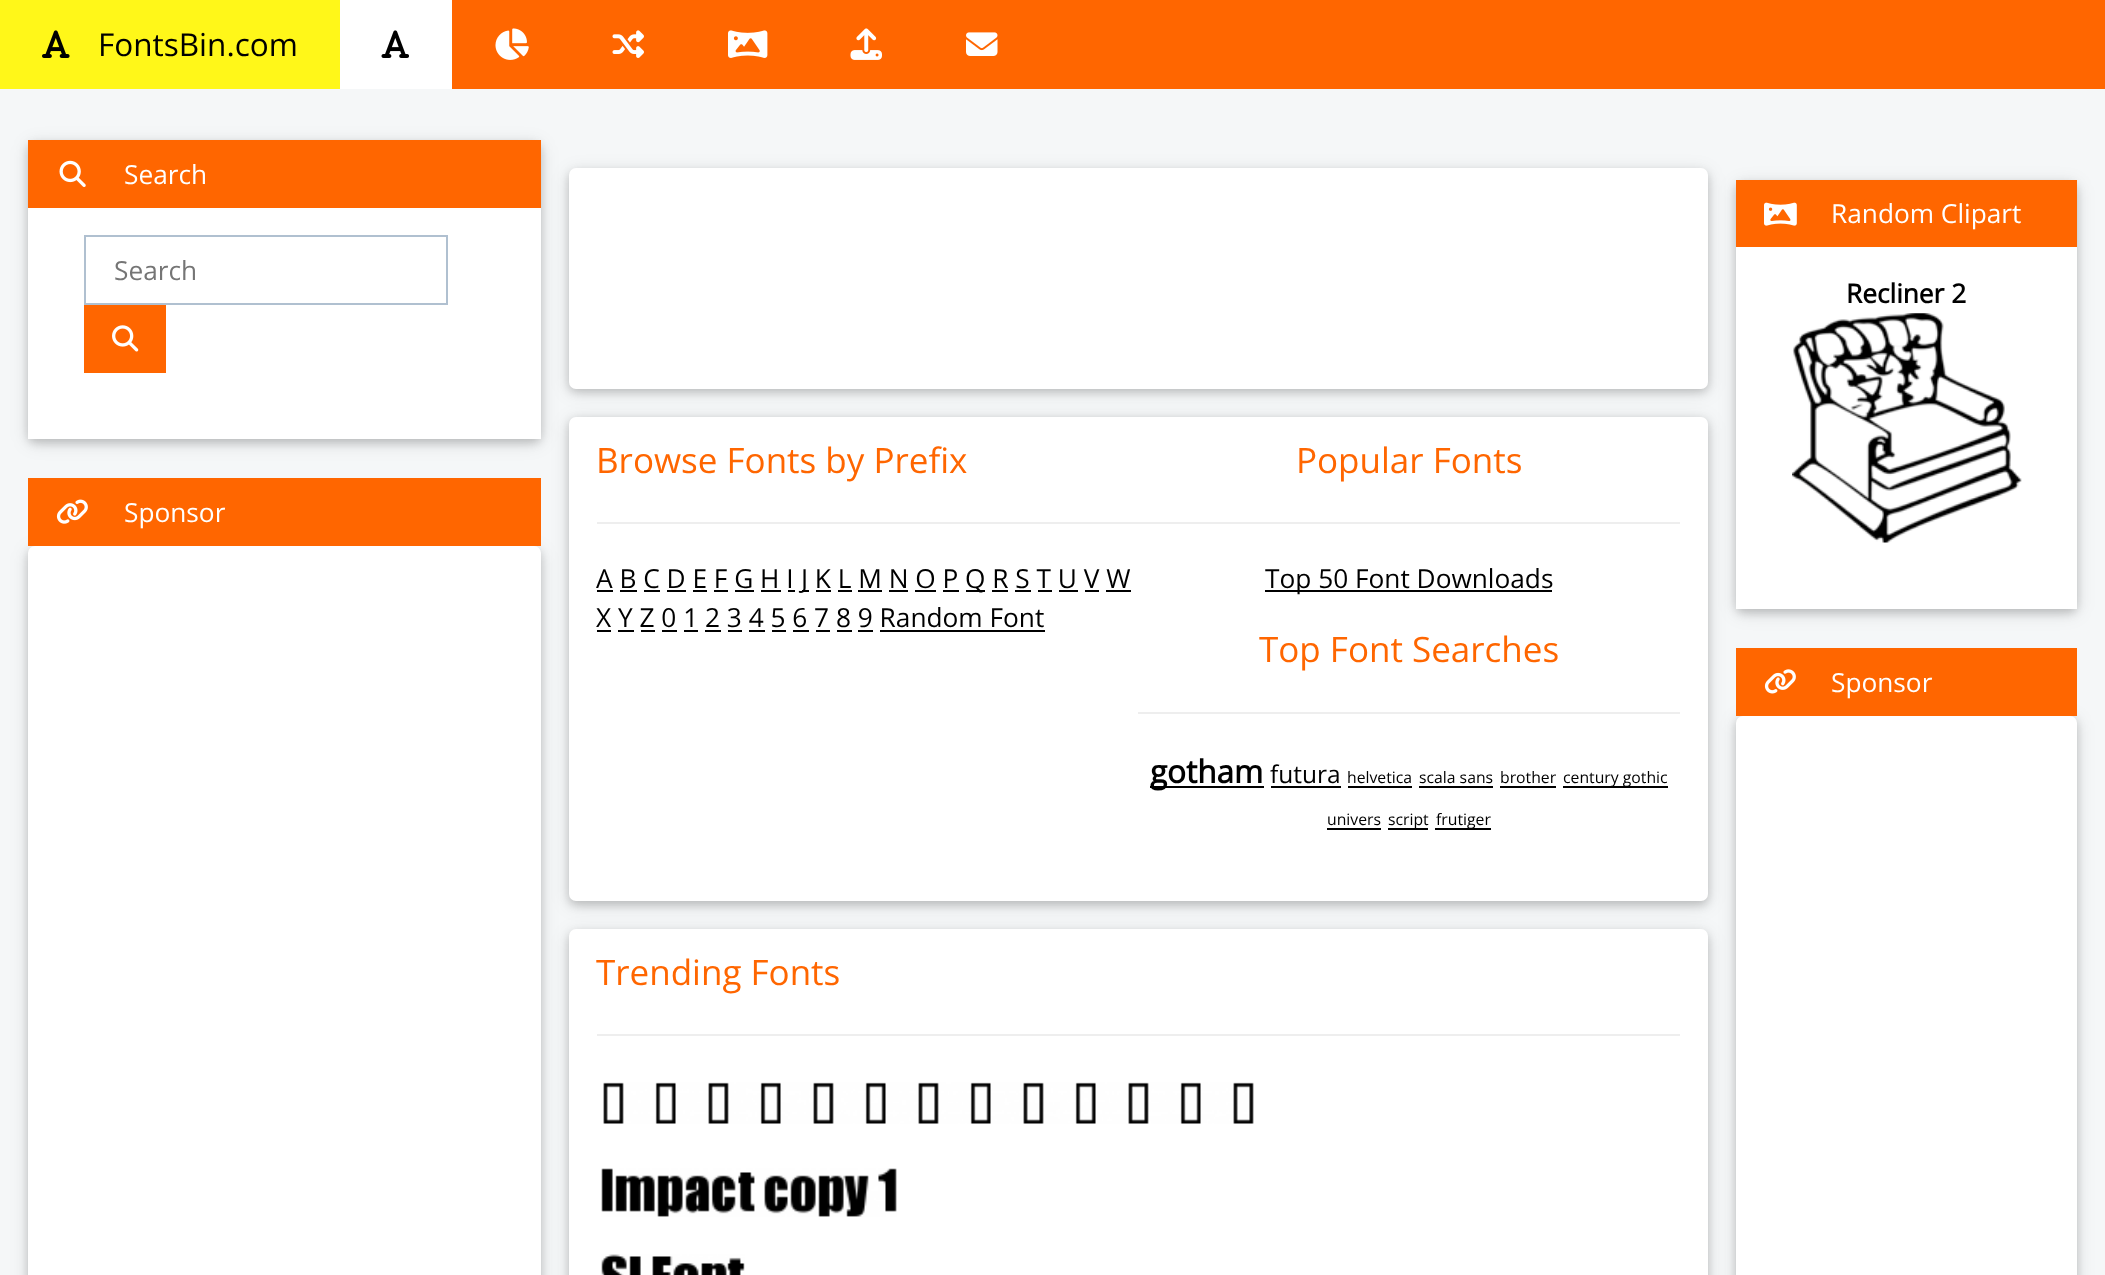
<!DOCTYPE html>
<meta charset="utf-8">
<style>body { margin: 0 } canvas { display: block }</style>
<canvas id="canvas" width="2105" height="1275"></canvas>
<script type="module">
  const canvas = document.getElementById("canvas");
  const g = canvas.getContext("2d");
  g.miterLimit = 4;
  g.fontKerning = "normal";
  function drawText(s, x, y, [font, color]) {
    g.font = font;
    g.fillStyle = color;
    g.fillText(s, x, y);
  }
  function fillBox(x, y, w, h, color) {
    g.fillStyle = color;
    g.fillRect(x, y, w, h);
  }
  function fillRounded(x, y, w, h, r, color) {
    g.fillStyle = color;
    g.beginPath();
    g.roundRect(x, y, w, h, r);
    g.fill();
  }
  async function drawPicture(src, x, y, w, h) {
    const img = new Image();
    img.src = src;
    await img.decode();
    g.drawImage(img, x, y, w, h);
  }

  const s1 = ["31.5px Open Sans", "#000000"];
  const s2 = ["26.25px Open Sans", "#FFFFFF"];
  const s3 = ["26.25px Open Sans", "#757575"];
  const s4 = ["35px Open Sans", "#FF6600"];
  const s5 = ["26.25px Open Sans", "#000000"];
  const s6 = ["bold 31.5px Open Sans", "#000000"];
  const s7 = ["24.5px Open Sans", "#000000"];
  const s8 = ["15.75px Open Sans", "#000000"];
  const s9 = ["bold 26.25px Open Sans", "#000000"];

  fillBox(0, 0, 2105, 1275, "#F5F7F8");
  fillBox(452, 0, 1653, 89, "#FF6600");
  fillBox(0, 0, 340, 89, "#FFF719");
  await drawPicture("pic1.png", 42, 30, 28, 28);
  drawText("FontsBin.com", 98, 56, s1);
  fillBox(340, 0, 112, 89, "#FFFFFF");
  await drawPicture("pic2.png", 381, 30, 28, 28);
  await drawPicture("pic3.png", 495, 28, 34, 32);
  await drawPicture("pic4.png", 612, 30, 32, 28);
  await drawPicture("pic5.png", 728, 30, 40, 28);
  await drawPicture("pic6.png", 850, 28, 32, 32);
  await drawPicture("pic7.png", 966, 32, 32, 24);
  g.fillStyle = "rgba(0, 0, 0, 0.12)";
  g.filter = "blur(9px)";
  g.beginPath();
  g.roundRect(28, 144, 513, 299, 7);
  g.fill();
  g.filter = "none";
  g.fillStyle = "rgba(0, 0, 0, 0.16)";
  g.filter = "blur(4.5px)";
  g.beginPath();
  g.roundRect(28, 144, 513, 299, 7);
  g.fill();
  g.filter = "none";
  fillBox(28, 208, 513, 231, "#FFFFFF");
  fillBox(28, 140, 513, 68, "#FF6600");
  await drawPicture("pic8.png", 59, 160, 27, 27);
  drawText("Search", 124, 184, s2);
  g.strokeStyle = "#B0C0D0";
  g.lineWidth = 2;
  g.strokeRect(85, 236, 362, 68);
  drawText("Search", 114, 280, s3);
  fillBox(84, 305, 82, 68, "#FF6600");
  await drawPicture("pic9.png", 112, 325, 27, 27);
  g.fillStyle = "rgba(0, 0, 0, 0.12)";
  g.filter = "blur(9px)";
  g.beginPath();
  g.roundRect(28, 550, 513, 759, 7);
  g.fill();
  g.filter = "none";
  g.fillStyle = "rgba(0, 0, 0, 0.16)";
  g.filter = "blur(4.5px)";
  g.beginPath();
  g.roundRect(28, 550, 513, 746, 7);
  g.fill();
  g.filter = "none";
  fillBox(28, 478, 513, 68, "#FF6600");
  await drawPicture("pic10.png", 56, 499, 32, 25);
  drawText("Sponsor", 124, 522, s2);
  fillRounded(28, 546, 513, 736, 7, "#FFFFFF");
  g.fillStyle = "rgba(0, 0, 0, 0.12)";
  g.filter = "blur(9px)";
  g.beginPath();
  g.roundRect(569, 172, 1139, 220, 7);
  g.fill();
  g.filter = "none";
  g.fillStyle = "rgba(0, 0, 0, 0.16)";
  g.filter = "blur(4.5px)";
  g.beginPath();
  g.roundRect(569, 172, 1139, 220, 7);
  g.fill();
  g.filter = "none";
  fillRounded(569, 168, 1139, 221, 7, "#FFFFFF");
  g.fillStyle = "rgba(0, 0, 0, 0.12)";
  g.filter = "blur(9px)";
  g.beginPath();
  g.roundRect(569, 420, 1139, 485, 7);
  g.fill();
  g.filter = "none";
  g.fillStyle = "rgba(0, 0, 0, 0.16)";
  g.filter = "blur(4.5px)";
  g.beginPath();
  g.roundRect(569, 420, 1139, 485, 7);
  g.fill();
  g.filter = "none";
  fillRounded(569, 417, 1139, 484, 7, "#FFFFFF");
  drawText("Browse Fonts by Prefix", 596, 473, s4);
  fillBox(597, 522, 1083, 2, "#EEEEEE");
  drawText("A B C D E F G H I", 596, 588, s5);
  fillBox(597, 590, 16, 2, "#000000");
  fillBox(802, 590, 7, 2, "#000000");
  drawText("J K L M N O P", 801, 588, s5);
  fillBox(966, 590, 19, 2, "#000000");
  drawText("Q R S T U V W", 965, 588, s5);
  fillBox(620, 590, 17, 2, "#000000");
  fillBox(644, 590, 16, 2, "#000000");
  fillBox(667, 590, 19, 2, "#000000");
  fillBox(693, 590, 14, 2, "#000000");
  fillBox(714, 590, 14, 2, "#000000");
  fillBox(735, 590, 19, 2, "#000000");
  fillBox(761, 590, 20, 2, "#000000");
  fillBox(788, 590, 7, 2, "#000000");
  fillBox(816, 590, 15, 2, "#000000");
  fillBox(838, 590, 14, 2, "#000000");
  fillBox(858, 590, 24, 2, "#000000");
  fillBox(889, 590, 19, 2, "#000000");
  fillBox(915, 590, 21, 2, "#000000");
  fillBox(943, 590, 16, 2, "#000000");
  fillBox(992, 590, 16, 2, "#000000");
  fillBox(1015, 590, 16, 2, "#000000");
  fillBox(1038, 590, 14, 2, "#000000");
  fillBox(1059, 590, 19, 2, "#000000");
  fillBox(1085, 590, 14, 2, "#000000");
  fillBox(1106, 590, 25, 2, "#000000");
  drawText("X Y Z 0 1 2 3 4 5 6 7 8 9 Random Font", 596, 627, s5);
  fillBox(597, 630, 14, 2, "#000000");
  fillBox(618, 630, 16, 2, "#000000");
  fillBox(641, 630, 14, 2, "#000000");
  fillBox(662, 630, 15, 2, "#000000");
  fillBox(684, 630, 14, 2, "#000000");
  fillBox(705, 630, 16, 2, "#000000");
  fillBox(728, 630, 14, 2, "#000000");
  fillBox(749, 630, 16, 2, "#000000");
  fillBox(772, 630, 14, 2, "#000000");
  fillBox(793, 630, 16, 2, "#000000");
  fillBox(816, 630, 14, 2, "#000000");
  fillBox(837, 630, 15, 2, "#000000");
  fillBox(858, 630, 15, 2, "#000000");
  fillBox(880, 630, 165, 2, "#000000");
  drawText("Popular Fonts", 1296, 473, s4);
  fillBox(1265, 590, 287, 2, "#000000");
  drawText("Top 50 Font Downloads", 1265, 588, s5);
  drawText("Top Font Searches", 1259, 662, s4);
  fillBox(1138, 712, 542, 2, "#EEEEEE");
  fillBox(1150, 786, 114, 2, "#000000");
  drawText("gotham", 1150, 783, s6);
  drawText("futura", 1270, 783, s7);
  fillBox(1271, 786, 70, 2, "#000000");
  drawText("helvetica", 1347, 783, s8);
  fillBox(1348, 786, 64, 2, "#000000");
  drawText("scala sans", 1419, 783, s8);
  fillBox(1419, 786, 74, 2, "#000000");
  drawText("brother", 1500, 783, s8);
  fillBox(1500, 786, 56, 2, "#000000");
  fillBox(1563, 786, 105, 2, "#000000");
  drawText("century gothic", 1563, 783, s8);
  drawText("univers", 1327, 825, s8);
  fillBox(1327, 828, 54, 2, "#000000");
  fillBox(1388, 828, 40, 2, "#000000");
  drawText("script", 1388, 825, s8);
  fillBox(1435, 828, 56, 2, "#000000");
  drawText("frutiger", 1436, 825, s8);
  g.fillStyle = "rgba(0, 0, 0, 0.12)";
  g.filter = "blur(9px)";
  g.beginPath();
  g.roundRect(569, 933, 1139, 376, 7);
  g.fill();
  g.filter = "none";
  g.fillStyle = "rgba(0, 0, 0, 0.16)";
  g.filter = "blur(4.5px)";
  g.beginPath();
  g.roundRect(569, 933, 1139, 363, 7);
  g.fill();
  g.filter = "none";
  fillRounded(569, 929, 1139, 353, 7, "#FFFFFF");
  drawText("Trending Fonts", 596, 985, s4);
  fillBox(597, 1034, 1083, 2, "#EEEEEE");
  await drawPicture("pic11.png", 603, 1082, 651, 42);
  await drawPicture("pic12.png", 601, 1168, 296, 49);
  await drawPicture("pic13.png", 601, 1254, 144, 21);
  g.fillStyle = "rgba(0, 0, 0, 0.12)";
  g.filter = "blur(9px)";
  g.beginPath();
  g.roundRect(1736, 184, 341, 429, 7);
  g.fill();
  g.filter = "none";
  g.fillStyle = "rgba(0, 0, 0, 0.16)";
  g.filter = "blur(4.5px)";
  g.beginPath();
  g.roundRect(1736, 184, 341, 429, 7);
  g.fill();
  g.filter = "none";
  fillBox(1736, 247, 341, 362, "#FFFFFF");
  fillBox(1736, 180, 341, 67, "#FF6600");
  await drawPicture("pic14.png", 1764, 202, 33, 24);
  drawText("Random Clipart", 1831, 223, s2);
  drawText("Recliner 2", 1846, 303, s9);
  await drawPicture("pic15.png", 1792, 313, 230, 230);
  g.fillStyle = "rgba(0, 0, 0, 0.12)";
  g.filter = "blur(9px)";
  g.beginPath();
  g.roundRect(1736, 719, 341, 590, 7);
  g.fill();
  g.filter = "none";
  g.fillStyle = "rgba(0, 0, 0, 0.16)";
  g.filter = "blur(4.5px)";
  g.beginPath();
  g.roundRect(1736, 719, 341, 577, 7);
  g.fill();
  g.filter = "none";
  fillBox(1736, 648, 341, 68, "#FF6600");
  await drawPicture("pic16.png", 1764, 669, 32, 25);
  drawText("Sponsor", 1831, 692, s2);
  fillRounded(1736, 716, 341, 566, 7, "#FFFFFF");
</script>
